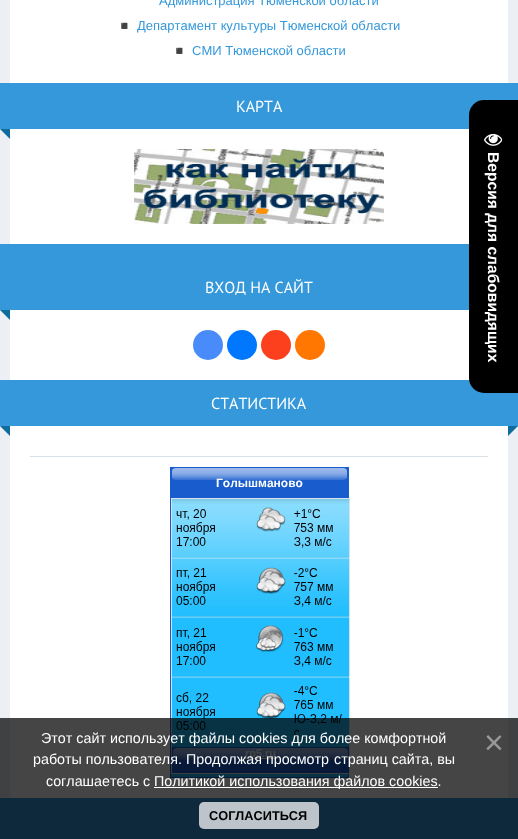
<!DOCTYPE html>
<meta charset="utf-8">
<style>body { margin: 0 } canvas { display: block }</style>
<canvas id="canvas" width="518" height="839"></canvas>
<script type="module">
  const canvas = document.getElementById("canvas");
  const g = canvas.getContext("2d");
  g.miterLimit = 4;
  g.fontKerning = "none";
  function drawText(s, x, y, [font, color]) {
    g.font = font;
    g.fillStyle = color;
    g.fillText(s, x, y);
  }
  function fillBox(x, y, w, h, color) {
    g.fillStyle = color;
    g.fillRect(x, y, w, h);
  }
  function fillRounded(x, y, w, h, r, color) {
    g.fillStyle = color;
    g.beginPath();
    g.roundRect(x, y, w, h, r);
    g.fill();
  }
  async function drawPicture(src, x, y, w, h) {
    const img = new Image();
    img.src = src;
    await img.decode();
    g.drawImage(img, x, y, w, h);
  }

  const s1 = ["13px Liberation Sans", "#3498DB"];
  const s2 = ["12px Noto Color Emoji", "#DADDDF"];
  const s3 = ["16px PT Sans", "#FFFFFF"];
  const s4 = ["bold 12px Liberation Sans", "#FFFFFF"];
  const s5 = ["14.3px Liberation Sans", "#FFFFFF"];
  const s6 = ["34px Liberation Sans", "#999999"];
  const s7 = ["bold 12.75px Liberation Sans", "#000000"];

  fillBox(0, 0, 518, 839, "#ECEFF3");
  fillBox(10, 0, 498, 798, "#FFFFFF");
  drawText("Администрация Тюменской области", 159, 5, s1);
  drawText("◾", 117, 30, s2);
  drawText("Департамент культуры Тюменской области", 137, 30, s1);
  drawText("◾", 172, 55, s2);
  drawText("СМИ Тюменской области", 192, 55, s1);
  fillBox(0, 83, 518, 46, "#3498DB");
  drawText("КАРТА", 236, 112, s3);
  g.fillStyle = "#0F6D9E";
  g.beginPath();
  g.moveTo(0, 129);
  g.lineTo(10, 129);
  g.lineTo(10, 139);
  g.closePath();
  g.fill();
  await drawPicture("pic1.png", 134, 149, 250, 75);
  fillBox(0, 244, 469, 66, "#3498DB");
  drawText("ВХОД НА САЙТ", 205, 293, s3);
  g.fillStyle = "#0F6D9E";
  g.beginPath();
  g.moveTo(0, 310);
  g.lineTo(10, 310);
  g.lineTo(10, 320);
  g.closePath();
  g.fill();
  g.fillStyle = "#498BFA";
  g.beginPath();
  g.arc(208, 345, 15, 0, Math.PI * 2);
  g.fill();
  g.fillStyle = "#0077FF";
  g.beginPath();
  g.arc(242, 345, 15, 0, Math.PI * 2);
  g.fill();
  g.fillStyle = "#FC3F1D";
  g.beginPath();
  g.arc(276, 345, 15, 0, Math.PI * 2);
  g.fill();
  g.fillStyle = "#FF7700";
  g.beginPath();
  g.arc(310, 345, 15, 0, Math.PI * 2);
  g.fill();
  fillBox(0, 380, 518, 46, "#3498DB");
  drawText("СТАТИСТИКА", 211, 409, s3);
  g.fillStyle = "#0F6D9E";
  g.beginPath();
  g.moveTo(0, 426);
  g.lineTo(10, 426);
  g.lineTo(10, 436);
  g.closePath();
  g.fill();
  g.beginPath();
  g.moveTo(508, 426);
  g.lineTo(518, 426);
  g.lineTo(508, 436);
  g.closePath();
  g.fill();
  fillBox(30, 456, 458, 1, "#DBE1E8");
  fillBox(171, 774, 177, 3, "#20BEFE");
  g.strokeStyle = "#185CCD";
  g.strokeRect(170.5, 467.5, 178, 310);
  fillBox(171, 468, 177, 30, "#185CCD");
  await drawPicture("pic2.png", 172, 468, 7, 12);
  await drawPicture("pic3.png", 340, 468, 7, 12);
  await drawPicture("pic4.png", 179, 468, 161, 12);
  drawText("Голышманово", 216, 487, s4);
  g.strokeStyle = "#DBE1E8";
  g.strokeRect(171.5, 498.5, 178, 275);
  await drawPicture("pic5.png", 172, 499, 177, 274);
  fillBox(0, 798, 518, 41, "#3498DB");
  g.fillStyle = "#000000";
  g.beginPath();
  g.roundRect(469, 100, 49, 293, [15, 0, 0, 15]);
  g.fill();
  await drawPicture("pic6.png", 484, 133, 18, 13);
  g.font = "bold 15.6px Liberation Sans";
  g.fillStyle = "#FFFFFF";
  g.save();
  g.translate(488, 152);
  g.rotate(90 * Math.PI / 180);
  g.fillText("Версия для слабовидящих", 0, 0);
  g.restore();
  fillBox(0, 718, 518, 121, "rgba(0, 0, 0, 0.73)");
  drawText("Этот сайт использует файлы cookies для более комфортной", 41, 743, s5);
  drawText("работы пользователя. Продолжая просмотр", 33, 764, s5);
  drawText("страниц сайта, вы", 334, 764, s5);
  drawText("соглашаетесь с", 46, 786, s5);
  fillBox(154, 787, 284, 1, "#FFFFFF");
  drawText("Политикой использования файлов cookies.", 154, 786, s5);
  drawText("×", 484, 754, s6);
  fillRounded(199, 802, 120, 27, 5, "rgba(255, 255, 255, 0.73)");
  drawText("СОГЛАСИТЬСЯ", 209, 820, s7);
</script>
